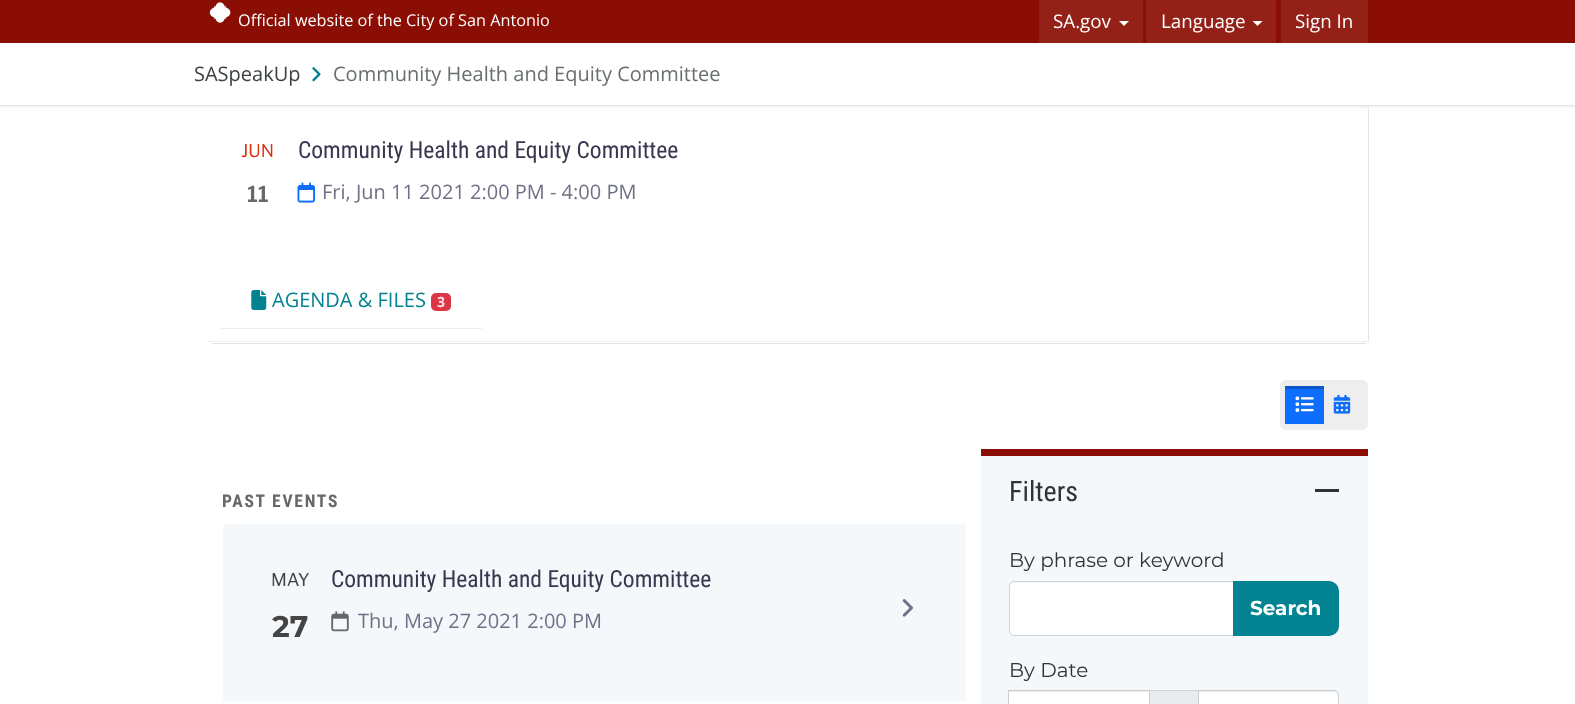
<!DOCTYPE html>
<meta charset="utf-8">
<style>body { margin: 0 } canvas { display: block }</style>
<canvas id="canvas" width="1575" height="704"></canvas>
<script type="module">
  const canvas = document.getElementById("canvas");
  const g = canvas.getContext("2d");
  g.miterLimit = 4;
  g.fontKerning = "normal";
  function drawText(s, x, y, [font, color]) {
    g.font = font;
    g.fillStyle = color;
    g.fillText(s, x, y);
  }
  function fillBox(x, y, w, h, color) {
    g.fillStyle = color;
    g.fillRect(x, y, w, h);
  }
  function fillRounded(x, y, w, h, r, color) {
    g.fillStyle = color;
    g.beginPath();
    g.roundRect(x, y, w, h, r);
    g.fill();
  }
  async function drawPicture(src, x, y, w, h) {
    const img = new Image();
    img.src = src;
    await img.decode();
    g.drawImage(img, x, y, w, h);
  }

  const s1 = ["16.25px Open Sans", "#FFFFFF"];
  const s2 = ["18.75px Open Sans", "#FFFFFF"];
  const s3 = ["20px Open Sans", "#3C4144"];
  const s4 = ["20px Open Sans", "#696F71"];
  const s5 = ["17.5px Libre Franklin", "#DB310F"];
  const s6 = ["600 22px Libre Franklin", "#696868"];
  const s7 = ["23.5px Roboto Condensed", "#39364F"];
  const s8 = ["20px Open Sans", "#6F7287"];
  const s9 = ["20px Open Sans", "#038391"];
  const s10 = ["bold 14px Open Sans", "#FCE5E8"];
  const s11 = ["bold 17.5px Roboto Condensed", "#696868"];
  const s12 = ["17.5px Libre Franklin", "#444444"];
  const s13 = ["bold 30px Montserrat", "#444444"];
  const s14 = ["28px Roboto Condensed", "#333333"];
  const s15 = ["20px Montserrat", "#333333"];
  const s16 = ["bold 20px Montserrat", "#FFFFFF"];

  fillBox(0, 0, 1575, 704, "#FFFFFF");
  fillBox(0, 0, 1575, 43, "#8B0E04");
  await drawPicture("pic1.png", 209, 2, 22, 21);
  drawText("Official website of the City of San Antonio", 238, 26, s1);
  fillBox(1039, 0, 104, 43, "#942118");
  drawText("SA.gov", 1053, 28, s2);
  g.beginPath();
  g.moveTo(1119, 21);
  g.lineTo(1129, 21);
  g.lineTo(1124, 26);
  g.closePath();
  g.fill();
  fillBox(1146, 0, 130, 43, "#942118");
  drawText("Language", 1161, 28, s2);
  g.beginPath();
  g.moveTo(1252.5, 21);
  g.lineTo(1262.5, 21);
  g.lineTo(1257.5, 26);
  g.closePath();
  g.fill();
  fillBox(1281, 0, 87, 43, "#942118");
  drawText("Sign In", 1295, 28, s2);
  g.fillStyle = "#E2E2E2";
  g.beginPath();
  g.moveTo(210, 342);
  g.bezierCurveTo(211, 343, 212, 344, 214, 344);
  g.lineTo(1364, 344);
  g.bezierCurveTo(1367, 344, 1369, 342, 1369, 339);
  g.lineTo(1369, 111);
  g.bezierCurveTo(1369, 109, 1368, 107, 1366, 106);
  g.bezierCurveTo(1367, 107, 1368, 109, 1368, 110);
  g.lineTo(1368, 338);
  g.bezierCurveTo(1368, 340, 1365, 342, 1362, 342);
  g.lineTo(212, 342);
  g.closePath();
  g.fill();
  fillRounded(208, 105, 1160, 238, 5, "#FFFFFF");
  fillBox(0, 105, 1575, 1, "#F2F2F2");
  g.save();
  g.beginPath();
  g.rect(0, 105, 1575, 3);
  g.clip();
  g.fillStyle = "rgba(0, 0, 0, 0.05)";
  g.filter = "blur(1px)";
  g.beginPath();
  g.rect(0, 45, 1575, 63);
  g.fill();
  g.filter = "none";
  g.restore();
  drawText("SASpeakUp", 194, 81, s3);
  await drawPicture("pic2.png", 312, 67, 9, 15);
  drawText("Community Health and Equity Committee", 333, 81, s4);
  drawText("JUN", 241, 157, s5);
  drawText("11", 247, 202, s6);
  drawText("Community Health and Equity Committee", 298, 158, s7);
  await drawPicture("pic3.png", 297, 182, 18, 21);
  drawText("Fri, Jun 11 2021 2:00 PM - 4:00 PM", 322, 199, s8);
  fillBox(210, 339, 1158, 4, "#FFFFFF");
  fillBox(208, 341, 1160, 1, "#EAEEF1");
  g.beginPath();
  g.moveTo(482, 329);
  g.lineTo(220, 329);
  g.lineTo(221, 328);
  g.lineTo(481, 328);
  g.lineTo(481, 327);
  g.closePath();
  g.fill();
  await drawPicture("pic4.png", 251, 290, 16, 20);
  drawText("AGENDA & FILES", 272, 307, s9);
  fillRounded(431, 293, 20, 18, 5, "#DC3545");
  drawText("3", 437, 307, s10);
  fillRounded(1280, 380, 88, 50, 6, "#EEEEEE");
  fillBox(1285, 389, 39, 35, "#0D6EFD");
  fillBox(1285, 386, 39, 3, "#0A58CA");
  await drawPicture("pic5.png", 1295, 396, 19, 16);
  await drawPicture("pic6.png", 1333, 394, 18, 20);
  g.letterSpacing = "1.75px";
  drawText("PAST EVENTS", 222, 507, s11);
  g.fillStyle = "#F5F8FA";
  g.beginPath();
  g.roundRect(223, 524, 743, 177, [4, 4, 0, 0]);
  g.fill();
  g.letterSpacing = "0px";
  drawText("MAY", 271, 586, s12);
  drawText("27", 272, 637, s13);
  drawText("Community Health and Equity Committee", 331, 587, s7);
  await drawPicture("pic7.png", 902, 599, 11, 18);
  await drawPicture("pic8.png", 331, 611, 18, 21);
  drawText("Thu, May 27 2021 2:00 PM", 358, 628, s8);
  fillBox(981, 449, 387, 7, "#8B0E04");
  fillBox(981, 456, 387, 248, "#F5F8FA");
  drawText("Filters", 1009, 501, s14);
  fillBox(1315, 489, 24, 3, "#333333");
  drawText("By phrase or keyword", 1009, 567, s15);
  g.fillStyle = "#FFFFFF";
  g.beginPath();
  g.roundRect(1010, 583, 223, 52, [4, 0, 0, 4]);
  g.fill();
  g.beginPath();
  g.roundRect(1009.5, 581.5, 224, 54, [4.5, 0, 0, 4.5]);
  g.strokeStyle = "#CBD5DD";
  g.stroke();
  g.fillStyle = "#038391";
  g.beginPath();
  g.roundRect(1233, 581, 106, 55, [0, 10, 10, 0]);
  g.fill();
  drawText("Search", 1250, 615, s16);
  drawText("By Date", 1009, 677, s15);
  fillBox(1009, 692, 140, 12, "#FFFFFF");
  fillBox(1009, 691, 140, 1, "#ECECEC");
  g.fillStyle = "#E9ECEF";
  g.beginPath();
  g.rect(1149.5, 690.5, 49, 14);
  g.fill();
  g.strokeStyle = "#CED4DA";
  g.stroke();
  g.strokeStyle = "#CCCCCC";
  g.strokeRect(1008.5, 690.5, 141, 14);
  g.fillStyle = "#FFFFFF";
  g.beginPath();
  g.moveTo(1199, 691);
  g.lineTo(1334, 691);
  g.bezierCurveTo(1336, 691, 1338, 693, 1338, 695);
  g.lineTo(1338, 704);
  g.bezierCurveTo(1338, 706, 1336, 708, 1334, 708);
  g.lineTo(1199, 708);
  g.closePath();
  g.fill();
  g.fillStyle = "rgba(0, 0, 0, 0.07)";
  g.beginPath();
  g.moveTo(1199, 692);
  g.lineTo(1334, 692);
  g.bezierCurveTo(1336, 692, 1338, 694, 1338, 696);
  g.lineTo(1338, 695);
  g.bezierCurveTo(1338, 693, 1336, 691, 1334, 691);
  g.lineTo(1199, 691);
  g.closePath();
  g.fill();
  g.beginPath();
  g.moveTo(1198.5, 690.5);
  g.lineTo(1334, 690.5);
  g.bezierCurveTo(1336.5, 690.5, 1338.5, 692.5, 1338.5, 695);
  g.lineTo(1338.5, 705);
  g.bezierCurveTo(1338.5, 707.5, 1336.5, 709.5, 1334, 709.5);
  g.lineTo(1198.5, 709.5);
  g.closePath();
  g.stroke();
</script>
